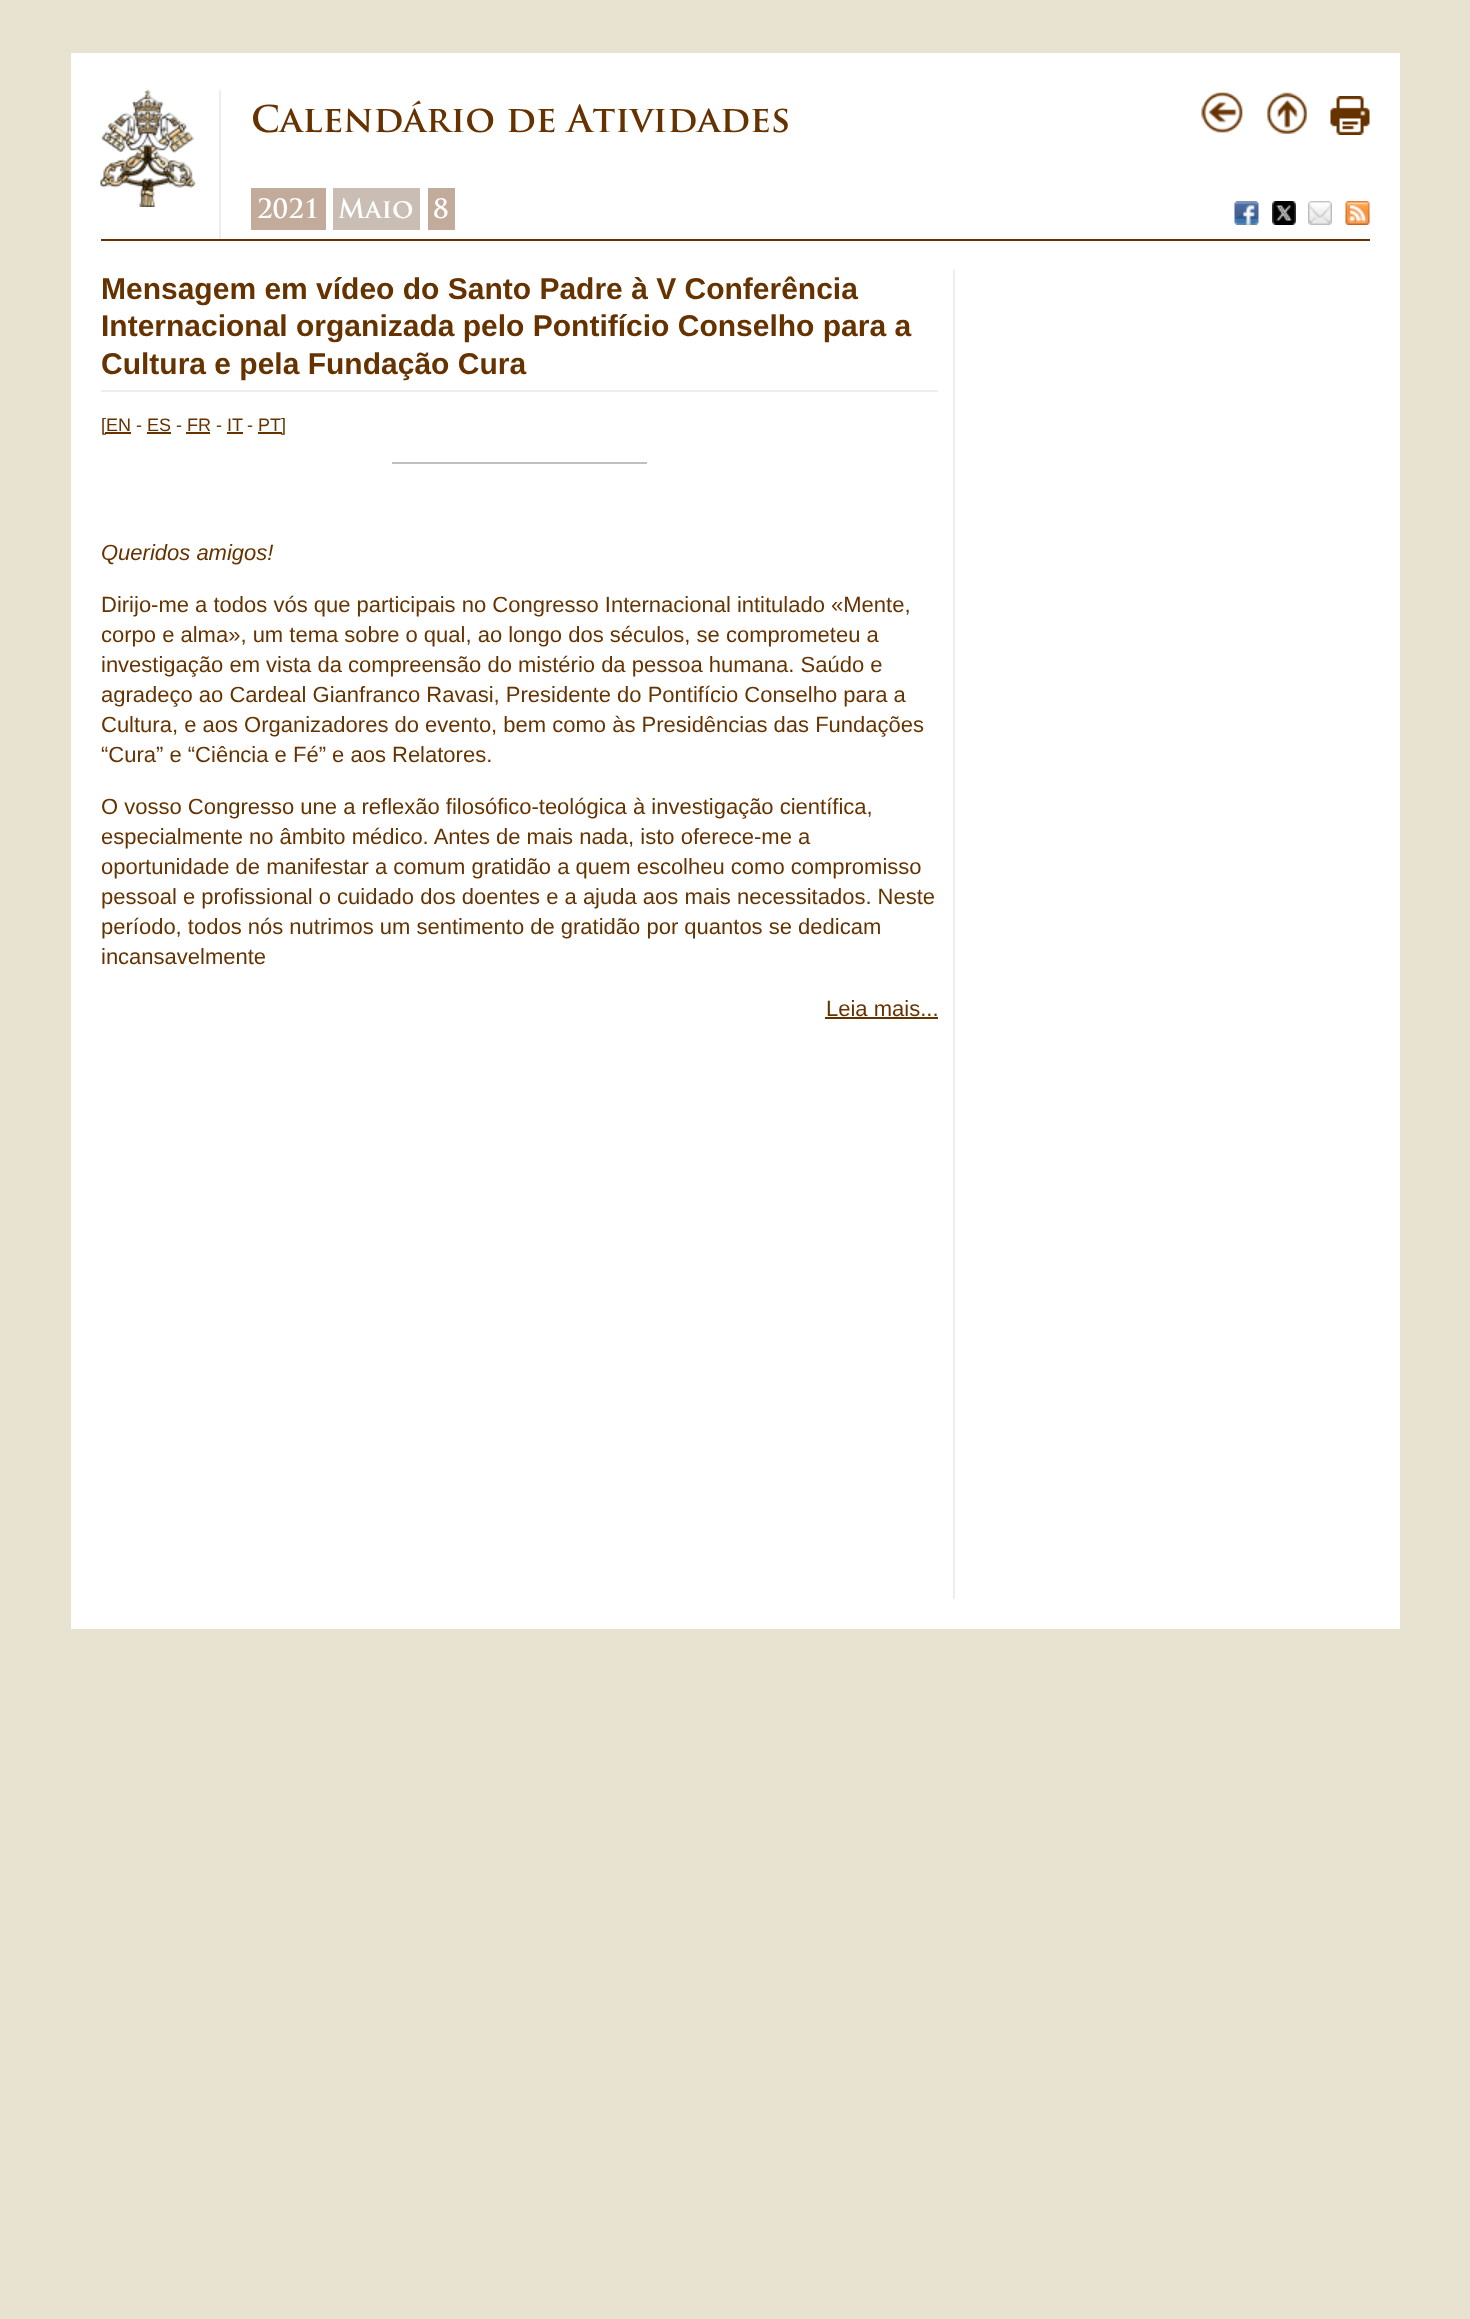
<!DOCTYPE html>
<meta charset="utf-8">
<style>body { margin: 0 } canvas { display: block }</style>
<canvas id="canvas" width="1470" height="2319"></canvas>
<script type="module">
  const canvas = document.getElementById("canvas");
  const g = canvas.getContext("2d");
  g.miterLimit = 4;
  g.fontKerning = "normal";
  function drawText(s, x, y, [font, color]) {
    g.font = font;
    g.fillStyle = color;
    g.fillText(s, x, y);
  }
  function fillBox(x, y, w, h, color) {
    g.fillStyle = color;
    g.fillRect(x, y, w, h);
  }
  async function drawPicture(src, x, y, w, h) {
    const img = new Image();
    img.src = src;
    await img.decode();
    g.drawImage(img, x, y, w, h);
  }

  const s1 = ["bold 36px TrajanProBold", "#663300"];
  const s2 = ["bold 26px TrajanProBold", "#FFFFFF"];
  const s3 = ["bold 30px Liberation Sans", "#663300"];
  const s4 = ["18px Liberation Sans", "#663300"];
  const s5 = ["italic 22px Liberation Sans", "#663300"];
  const s6 = ["22px Liberation Sans", "#663300"];

  fillBox(0, 0, 1470, 2319, "#E8E2D1");
  fillBox(71, 53, 1329, 1576, "#FFFFFF");
  fillBox(101, 239, 1269, 2, "#663300");
  fillBox(219, 90, 2, 149, "#EEEEEE");
  await drawPicture("pic1.png", 100, 90, 96, 117);
  drawText("Calendário de Atividades", 251, 132, s1);
  fillBox(251, 188, 75, 42, "#C2AB9B");
  drawText("2021", 257, 218, s2);
  fillBox(333, 188, 87, 42, "#CABDB4");
  drawText("Maio", 338, 218, s2);
  fillBox(428, 188, 27, 42, "#C2AB9B");
  drawText("8", 433, 218, s2);
  await drawPicture("pic2.png", 1201, 92, 42, 41);
  await drawPicture("pic3.png", 1267, 92, 40, 42);
  await drawPicture("pic4.png", 1330, 96, 40, 39);
  await drawPicture("pic5.png", 1234, 201, 25, 24);
  await drawPicture("pic6.png", 1272, 201, 24, 24);
  await drawPicture("pic7.png", 1308, 201, 24, 24);
  await drawPicture("pic8.png", 1345, 201, 25, 24);
  fillBox(953, 270, 2, 1329, "#EEEEEE");
  fillBox(101, 390, 837, 2, "#EEEEEE");
  drawText("Mensagem em vídeo do Santo Padre à V Conferência", 101, 299, s3);
  drawText("Internacional organizada pelo Pontifício Conselho para a", 101, 336, s3);
  drawText("Cultura e pela Fundação Cura", 101, 374, s3);
  drawText("[EN - ES - FR - IT", 101, 431, s4);
  drawText("- PT", 247, 431, s4);
  fillBox(258, 432, 24, 2, "#663300");
  drawText("]", 281, 431, s4);
  fillBox(105, 432, 26, 2, "#663300");
  fillBox(147, 432, 24, 2, "#663300");
  fillBox(186, 432, 24, 2, "#663300");
  fillBox(227, 432, 16, 2, "#663300");
  fillBox(392, 462, 255, 2, "#C0C0C0");
  drawText("Queridos amigos!", 101, 560, s5);
  drawText("Dirijo-me a todos vós que participais no Congresso Internacional intitulado «Mente,", 101, 612, s6);
  drawText("corpo e alma», um tema sobre o qual, ao longo dos séculos, se comprometeu a", 101, 642, s6);
  drawText("investigação em vista da compreensão do mistério da pessoa humana. Saúdo e", 101, 672, s6);
  drawText("agradeço ao Cardeal Gianfranco Ravasi, Presidente do Pontifício Conselho para a", 101, 702, s6);
  drawText("Cultura, e aos Organizadores do evento, bem como às Presidências das Fundações", 101, 732, s6);
  drawText("“Cura” e “Ciência e Fé” e aos Relatores.", 101, 762, s6);
  drawText("O vosso Congresso une a reflexão filosófico-teológica à investigação científica,", 101, 814, s6);
  drawText("especialmente no âmbito médico. Antes de mais nada, isto oferece-me a", 101, 844, s6);
  drawText("oportunidade de manifestar a comum gratidão a quem escolheu como compromisso", 101, 874, s6);
  drawText("pessoal e profissional o cuidado dos doentes e a ajuda aos mais necessitados. Neste", 101, 904, s6);
  drawText("período, todos nós nutrimos um sentimento de gratidão por quantos se dedicam", 101, 934, s6);
  drawText("incansavelmente", 101, 964, s6);
  drawText("Leia mais...", 826, 1016, s6);
  fillBox(825, 1017, 113, 2, "#663300");
</script>
